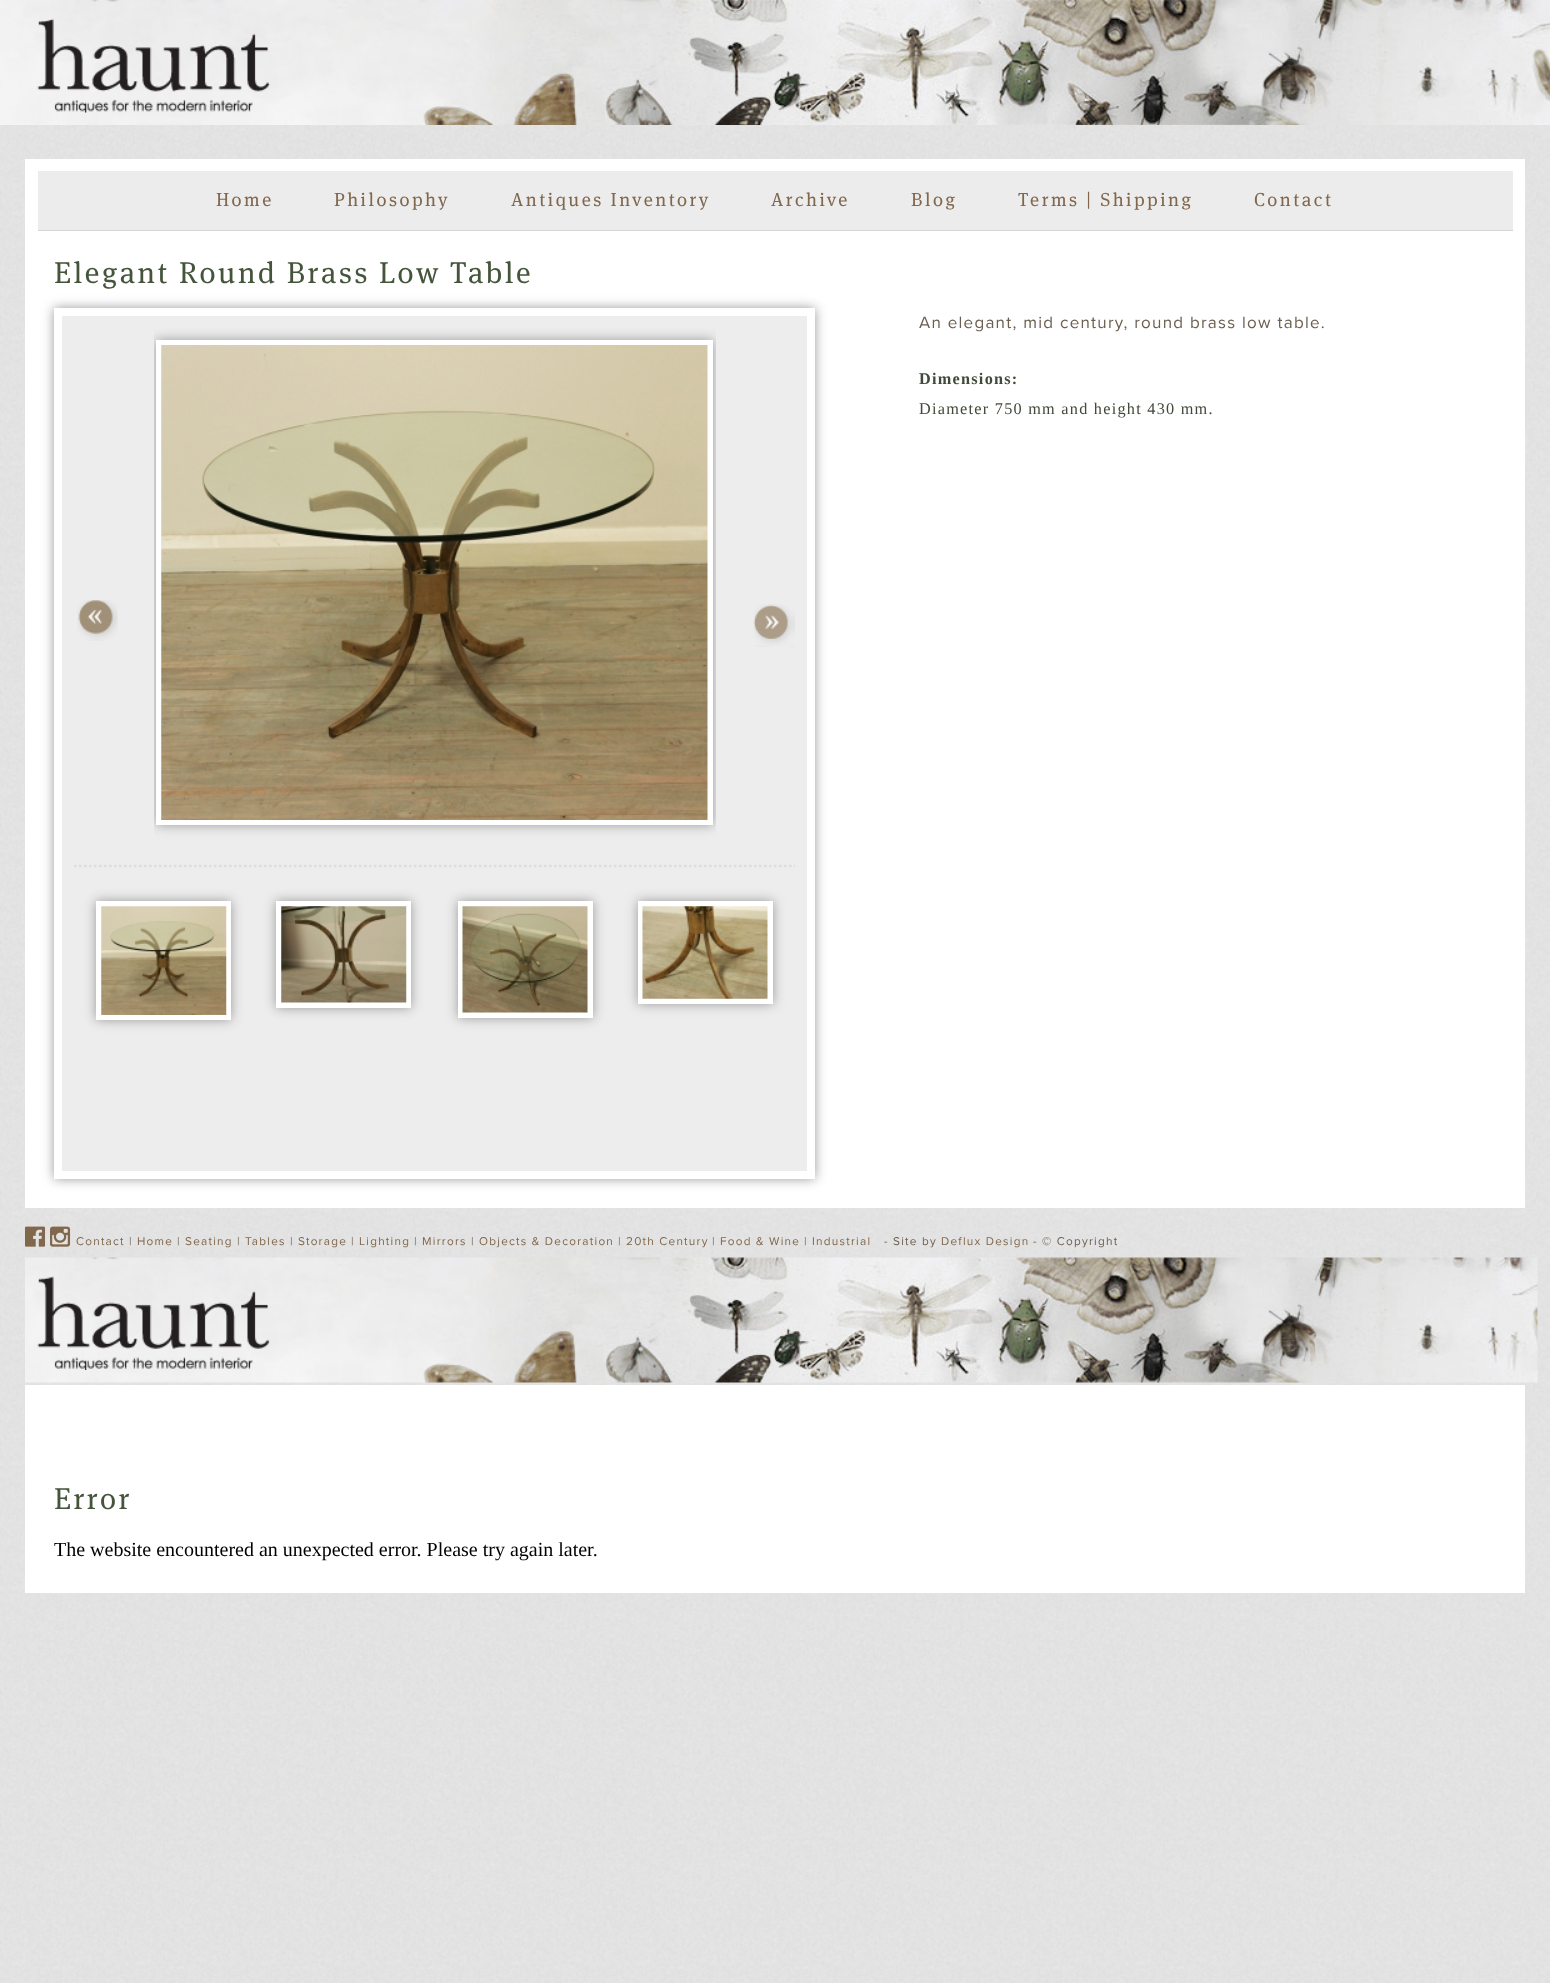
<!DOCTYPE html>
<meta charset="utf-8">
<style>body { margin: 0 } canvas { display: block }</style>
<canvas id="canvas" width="1550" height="1983"></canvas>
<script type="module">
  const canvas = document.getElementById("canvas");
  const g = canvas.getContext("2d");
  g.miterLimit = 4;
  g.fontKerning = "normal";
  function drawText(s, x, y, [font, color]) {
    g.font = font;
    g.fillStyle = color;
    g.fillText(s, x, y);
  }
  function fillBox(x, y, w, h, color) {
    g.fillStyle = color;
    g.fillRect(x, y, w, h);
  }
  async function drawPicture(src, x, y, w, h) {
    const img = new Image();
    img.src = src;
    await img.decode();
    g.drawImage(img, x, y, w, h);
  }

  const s1 = ["500 18.75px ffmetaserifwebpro", "#81674C"];
  const s2 = ["500 30px ffmetaserifwebpro", "#45553B"];
  const s3 = ["17px Proxima Nova", "#6B5F4F"];
  const s4 = ["bold 16.25px Liberation Serif", "#404A3A"];
  const s5 = ["16.25px Liberation Serif", "#404A3A"];
  const s6 = ["11.75px Proxima Nova", "#81674C"];
  const s7 = ["11.75px Proxima Nova", "#6B5F4F"];
  const s8 = ["20px Liberation Serif", "#000000"];

  fillBox(0, 0, 1550, 1983, "#FFFFFF");
  await drawPicture("pic1.png", 0, 125, 1550, 1858);
  await drawPicture("pic2.png", 0, 0, 1550, 125);
  await drawPicture("pic3.png", 37, 18, 233, 95);
  fillBox(25, 159, 1500, 1049, "#FFFFFF");
  fillBox(38, 171, 1475, 59, "#ECECEC");
  fillBox(38, 230, 1475, 1, "#D7D7D7");
  g.letterSpacing = "2.5px";
  drawText("Home", 216, 206, s1);
  drawText("Philosophy", 334, 206, s1);
  drawText("Antiques Inventory", 511, 206, s1);
  drawText("Archive", 771, 206, s1);
  drawText("Blog", 911, 206, s1);
  drawText("Terms | Shipping", 1018, 206, s1);
  drawText("Contact", 1254, 206, s1);
  drawText("Elegant Round Brass Low Table", 54, 283, s2);
  g.fillStyle = "#999999";
  g.filter = "blur(6px)";
  g.beginPath();
  g.rect(54, 308, 761, 871);
  g.fill();
  g.filter = "none";
  g.fillStyle = "#EDEDED";
  g.beginPath();
  g.rect(58, 312, 753, 863);
  g.fill();
  g.strokeStyle = "#FFFFFF";
  g.lineWidth = 8;
  g.stroke();
  g.save();
  g.beginPath();
  g.rect(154, 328, 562, 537);
  g.clip();
  g.fillStyle = "#999999";
  g.filter = "blur(6px)";
  g.beginPath();
  g.rect(156, 340, 557, 485);
  g.fill();
  g.filter = "none";
  g.restore();
  fillBox(156, 340, 557, 485, "#FFFFFF");
  await drawPicture("pic4.png", 161, 345, 547, 475);
  g.beginPath();
  g.moveTo(74, 866);
  g.lineTo(795, 866);
  g.strokeStyle = "#DDDDDD";
  g.lineWidth = 2.5;
  g.setLineDash([2.5, 2.5]);
  g.stroke();
  await drawPicture("pic5.png", 77, 600, 41, 41);
  await drawPicture("pic6.png", 753, 604, 42, 43);
  g.fillStyle = "#999999";
  g.filter = "blur(6px)";
  g.beginPath();
  g.rect(96, 901, 135, 119);
  g.fill();
  g.filter = "none";
  fillBox(96, 901, 135, 119, "#FFFFFF");
  await drawPicture("pic7.png", 101, 906, 126, 109);
  g.fillStyle = "#999999";
  g.filter = "blur(6px)";
  g.beginPath();
  g.rect(276, 901, 135, 107);
  g.fill();
  g.filter = "none";
  fillBox(276, 901, 135, 107, "#FFFFFF");
  await drawPicture("pic8.png", 281, 906, 126, 97);
  g.fillStyle = "#999999";
  g.filter = "blur(6px)";
  g.beginPath();
  g.rect(458, 901, 135, 117);
  g.fill();
  g.filter = "none";
  fillBox(458, 901, 135, 117, "#FFFFFF");
  await drawPicture("pic9.png", 462, 906, 126, 107);
  g.fillStyle = "#999999";
  g.filter = "blur(6px)";
  g.beginPath();
  g.rect(638, 901, 135, 103);
  g.fill();
  g.filter = "none";
  fillBox(638, 901, 135, 103, "#FFFFFF");
  await drawPicture("pic10.png", 642, 906, 126, 93);
  g.letterSpacing = "1.25px";
  drawText("An elegant, mid century, round brass low table.", 919, 328, s3);
  drawText("Dimensions:", 919, 384, s4);
  drawText("Diameter 750 mm and height 430 mm.", 919, 414, s5);
  await drawPicture("pic11.png", 25, 1226, 21, 21);
  await drawPicture("pic12.png", 50, 1226, 21, 21);
  drawText("Contact", 76, 1245, s6);
  drawText("|", 129, 1245, s7);
  drawText("Home", 137, 1245, s6);
  drawText("|", 177, 1245, s7);
  drawText("Seating", 185, 1245, s6);
  drawText("|", 237, 1245, s7);
  drawText("Tables", 245, 1245, s6);
  drawText("|", 290, 1245, s7);
  drawText("Storage", 298, 1245, s6);
  drawText("|", 351, 1245, s7);
  drawText("Lighting", 359, 1245, s6);
  drawText("|", 414, 1245, s7);
  drawText("Mirrors", 422, 1245, s6);
  drawText("|", 471, 1245, s7);
  drawText("Objects & Decoration", 479, 1245, s6);
  drawText("|", 618, 1245, s7);
  drawText("20th Century", 626, 1245, s6);
  drawText("|", 712, 1245, s7);
  drawText("Food & Wine", 720, 1245, s6);
  drawText("|", 804, 1245, s7);
  drawText("Industrial", 812, 1245, s6);
  drawText("- Site by", 884, 1245, s7);
  drawText("Deflux Design", 941, 1245, s6);
  drawText("- © Copyright", 1033, 1245, s7);
  await drawPicture("pic13.png", 25, 1257, 1513, 126);
  await drawPicture("pic14.png", 37, 1276, 233, 94);
  fillBox(25, 1385, 1500, 208, "#FFFFFF");
  g.letterSpacing = "2.5px";
  drawText("Error", 54, 1509, s2);
  g.letterSpacing = "0px";
  drawText("The website encountered an unexpected error. Please try again later.", 54, 1556, s8);
</script>
